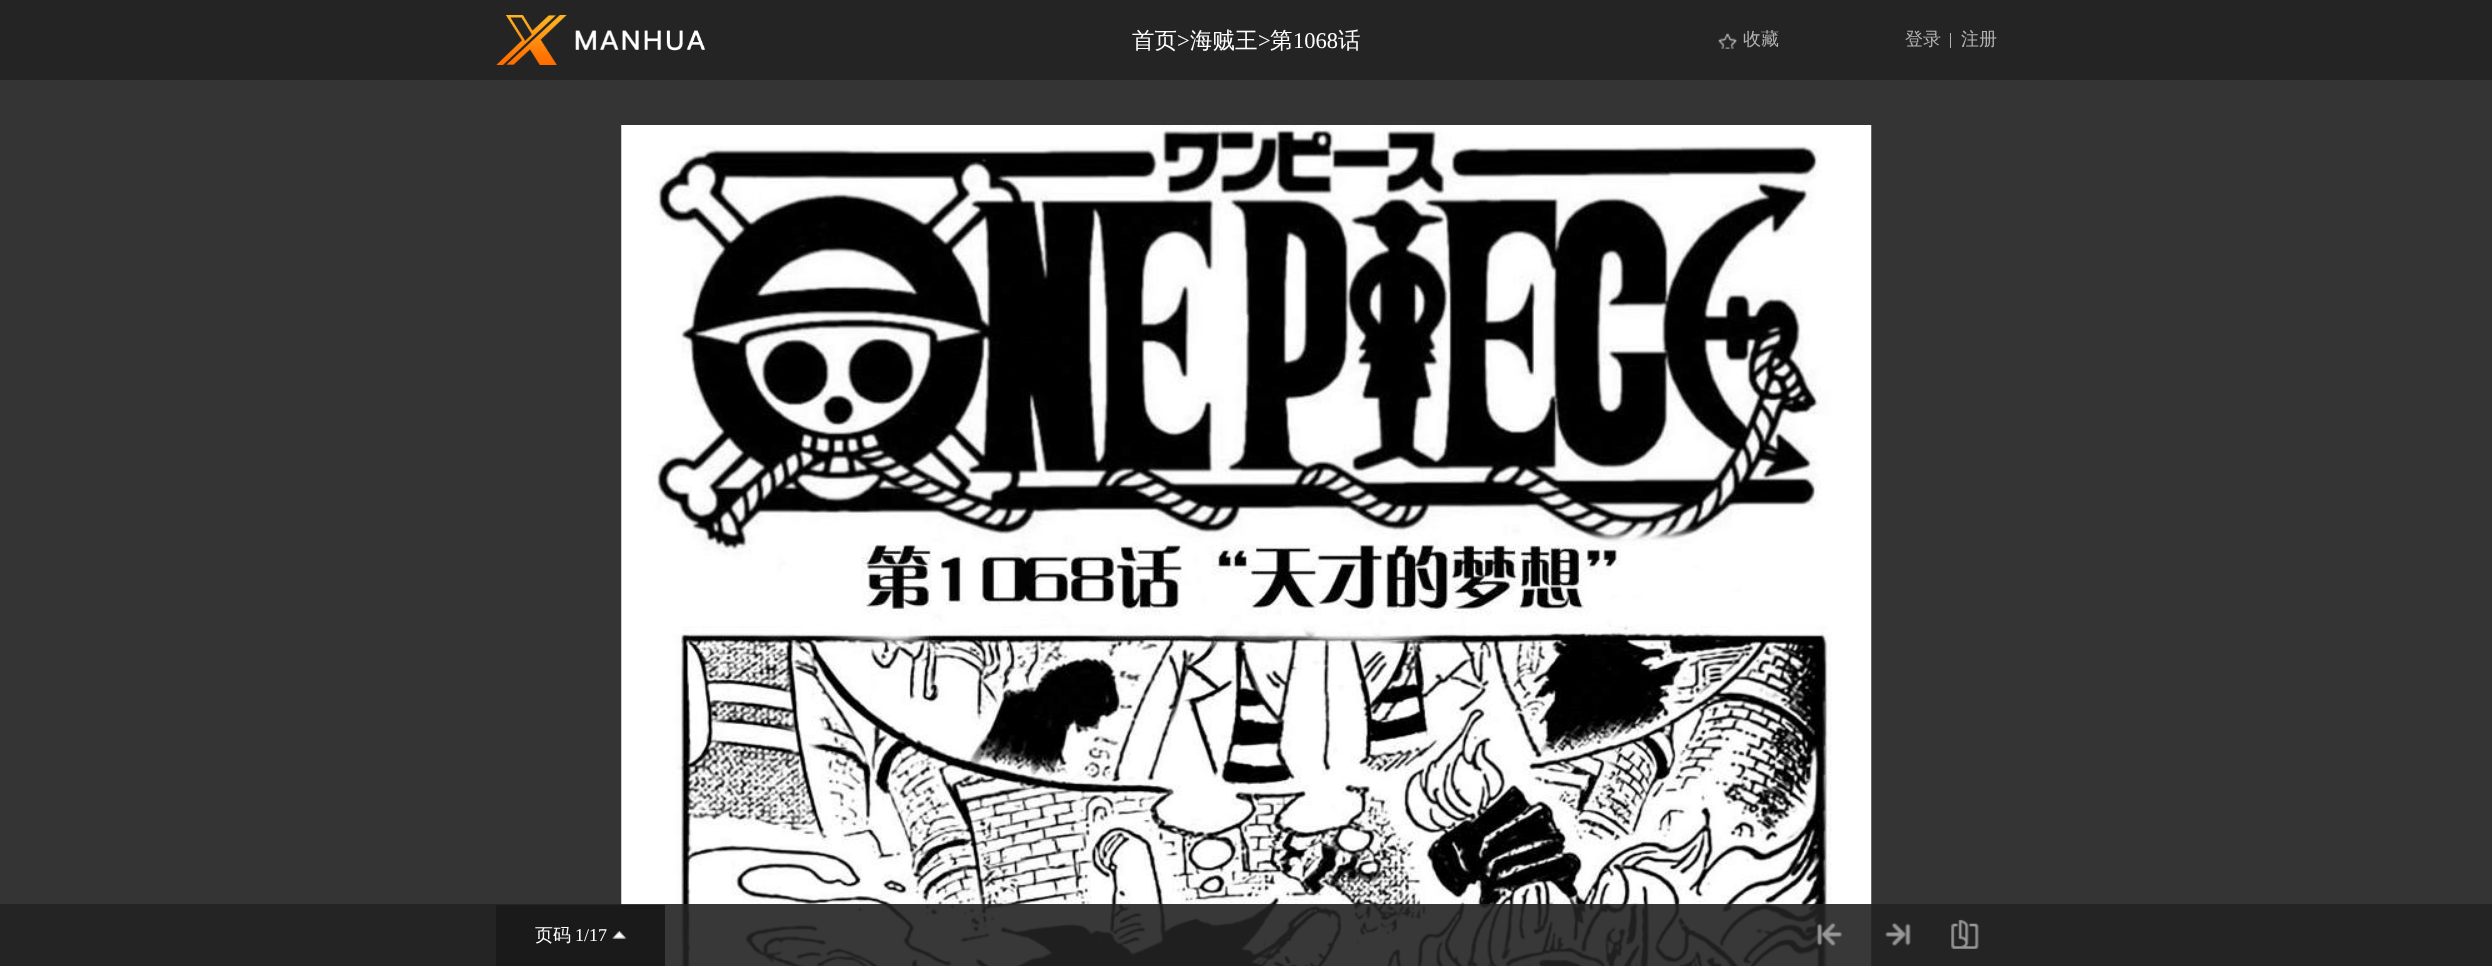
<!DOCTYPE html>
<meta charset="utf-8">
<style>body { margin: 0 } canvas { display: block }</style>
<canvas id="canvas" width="2492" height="966"></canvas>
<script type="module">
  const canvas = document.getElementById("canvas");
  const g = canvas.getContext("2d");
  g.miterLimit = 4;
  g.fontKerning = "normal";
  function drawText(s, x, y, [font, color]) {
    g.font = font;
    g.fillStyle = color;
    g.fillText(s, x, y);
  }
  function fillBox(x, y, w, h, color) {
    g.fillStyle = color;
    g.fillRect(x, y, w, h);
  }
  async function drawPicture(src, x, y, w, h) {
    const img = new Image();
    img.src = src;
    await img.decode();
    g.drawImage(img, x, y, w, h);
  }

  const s1 = ["500 22.5px WenQuanYi Zen Hei", "#FFFFFF"];
  const s2 = ["22.5px Liberation Serif", "#FFFFFF"];
  const s3 = ["500 18px WenQuanYi Zen Hei", "#B2B2B2"];
  const s4 = ["500 18px WenQuanYi Zen Hei", "#FFFFFF"];
  const s5 = ["18px Liberation Serif", "#FFFFFF"];

  fillBox(0, 0, 2492, 966, "#343434");
  fillBox(0, 0, 2492, 80, "#242424");
  await drawPicture("pic1.png", 496, 15, 209, 50);
  drawText("首页", 1132, 48, s1);
  drawText(">", 1177, 48, s2);
  drawText("海贼王", 1190, 48, s1);
  drawText(">", 1258, 48, s2);
  drawText("第", 1270, 48, s1);
  drawText("1068", 1293, 48, s2);
  drawText("话", 1338, 48, s1);
  await drawPicture("pic2.png", 1718, 33, 19, 16);
  drawText("收藏", 1743, 45, s3);
  drawText("登录", 1905, 45, s3);
  fillBox(1950, 33, 1, 15, "#B2B2B2");
  drawText("注册", 1961, 45, s3);
  await drawPicture("pic7.png", 621, 125, 1251, 841);
  fillBox(0, 904, 2492, 62, "rgba(34, 34, 34, 0.9)");
  fillBox(496, 905, 169, 61, "#1A1A1A");
  drawText("页码", 535, 941, s4);
  drawText("1/17", 575, 941, s5);
  await drawPicture("pic3.png", 612, 931, 15, 8);
  await drawPicture("pic4.png", 1816, 922, 27, 24);
  await drawPicture("pic5.png", 1885, 922, 26, 24);
  await drawPicture("pic6.png", 1951, 919, 28, 30);
</script>
